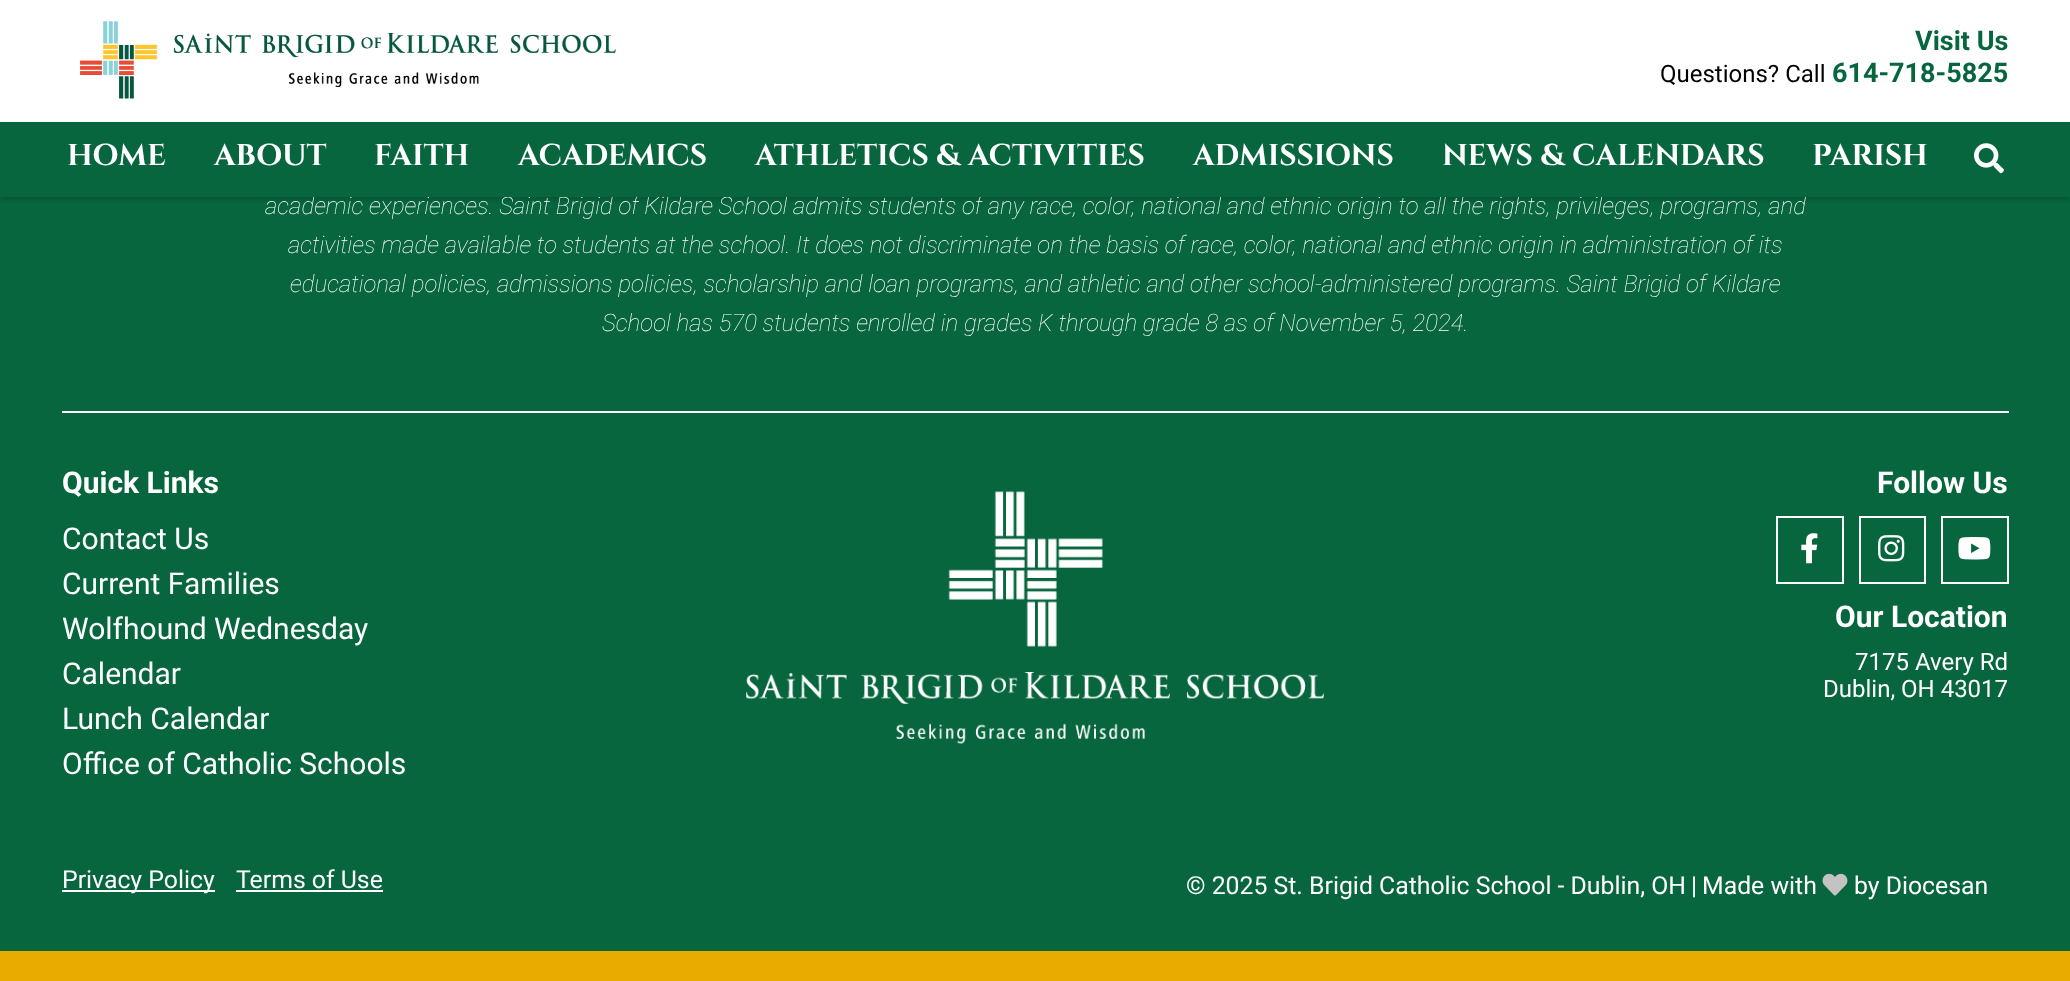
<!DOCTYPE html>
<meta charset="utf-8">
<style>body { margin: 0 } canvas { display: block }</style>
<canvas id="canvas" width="2070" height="981"></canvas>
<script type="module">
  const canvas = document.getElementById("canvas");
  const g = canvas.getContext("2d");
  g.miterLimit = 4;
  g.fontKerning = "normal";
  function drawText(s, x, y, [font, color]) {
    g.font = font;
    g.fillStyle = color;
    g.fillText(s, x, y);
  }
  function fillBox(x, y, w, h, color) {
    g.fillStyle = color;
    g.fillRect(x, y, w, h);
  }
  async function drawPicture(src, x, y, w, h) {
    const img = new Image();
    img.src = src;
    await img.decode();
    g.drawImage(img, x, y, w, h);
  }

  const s1 = ["bold 27px Roboto", "#07663E"];
  const s2 = ["24px Roboto", "#000000"];
  const s3 = ["italic 100 24px Roboto", "#FFFFFF"];
  const s4 = ["bold 30px Cinzel", "#FFFFFF"];
  const s5 = ["bold 30px Roboto", "#FFFFFF"];
  const s6 = ["30px Roboto", "#FFFFFF"];
  const s7 = ["24px Roboto", "#FFFFFF"];
  const s8 = ["24.8px Roboto", "#FFFFFF"];

  fillBox(0, 0, 2070, 981, "#07663E");
  g.fillStyle = "rgba(0, 0, 0, 0.16)";
  g.filter = "blur(2px)";
  g.beginPath();
  g.rect(0, 3, 2070, 197);
  g.fill();
  g.filter = "none";
  fillBox(0, 0, 2070, 122, "#FFFFFF");
  await drawPicture("pic1.png", 80, 21, 536, 78);
  drawText("Visit Us", 1915, 50, s1);
  drawText("Questions? Call", 1660, 82, s2);
  drawText("614-718-5825", 1832, 82, s1);
  drawText("academic experiences. Saint Brigid of Kildare School admits students of any race, color, national and ethnic origin to all the rights, privileges, programs, and", 265, 214, s3);
  fillBox(0, 122, 2070, 75, "#07663E");
  drawText("HOME", 67, 165, s4);
  drawText("ABOUT", 214, 165, s4);
  drawText("FAITH", 374, 165, s4);
  drawText("ACADEMICS", 518, 165, s4);
  drawText("ATHLETICS & ACTIVITIES", 755, 165, s4);
  drawText("ADMISSIONS", 1193, 165, s4);
  drawText("NEWS & CALENDARS", 1442, 165, s4);
  drawText("PARISH", 1812, 165, s4);
  await drawPicture("pic2.png", 1974, 143, 30, 31);
  fillBox(0, 951, 2070, 30, "#EAAB00");
  fillBox(62, 411, 1947, 2, "#FFFFFF");
  drawText("activities made available to students at the school. It does not discriminate on the basis of race, color, national and ethnic origin in administration of its", 288, 253, s3);
  drawText("educational policies, admissions policies, scholarship and loan programs, and athletic and other school-administered programs. Saint Brigid of Kildare", 290, 292, s3);
  drawText("School has 570 students enrolled in grades K through grade 8 as of November 5, 2024.", 602, 331, s3);
  drawText("Quick Links", 62, 493, s5);
  drawText("Contact Us", 62, 549, s6);
  drawText("Current Families", 62, 594, s6);
  drawText("Wolfhound Wednesday", 62, 639, s6);
  drawText("Calendar", 62, 684, s6);
  drawText("Lunch Calendar", 62, 729, s6);
  drawText("Office of Catholic Schools", 62, 774, s6);
  await drawPicture("pic3.png", 746, 491, 578, 253);
  drawText("Follow Us", 1877, 493, s5);
  g.strokeStyle = "#FFFFFF";
  g.lineWidth = 2;
  g.strokeRect(1777, 517, 66, 66);
  await drawPicture("pic4.png", 1801, 533, 17, 31);
  g.strokeRect(1860, 517, 65, 66);
  await drawPicture("pic5.png", 1878, 535, 27, 27);
  g.strokeRect(1942, 517, 66, 66);
  await drawPicture("pic6.png", 1958, 537, 33, 23);
  drawText("Our Location", 1835, 627, s5);
  drawText("7175 Avery Rd", 1855, 670, s7);
  drawText("Dublin, OH 43017", 1823, 697, s7);
  fillBox(62, 890, 153, 2, "#FFFFFF");
  drawText("Privacy Policy", 62, 888, s8);
  drawText("Terms of Use", 236, 888, s8);
  fillBox(236, 890, 147, 2, "#FFFFFF");
  drawText("© 2025 St. Brigid Catholic School - Dublin, OH", 1186, 894, s8);
  drawText("|", 1691, 894, s8);
  drawText("Made with", 1702, 894, s8);
  await drawPicture("pic7.png", 1822, 873, 26, 23);
  drawText("by Diocesan", 1854, 894, s8);
</script>
